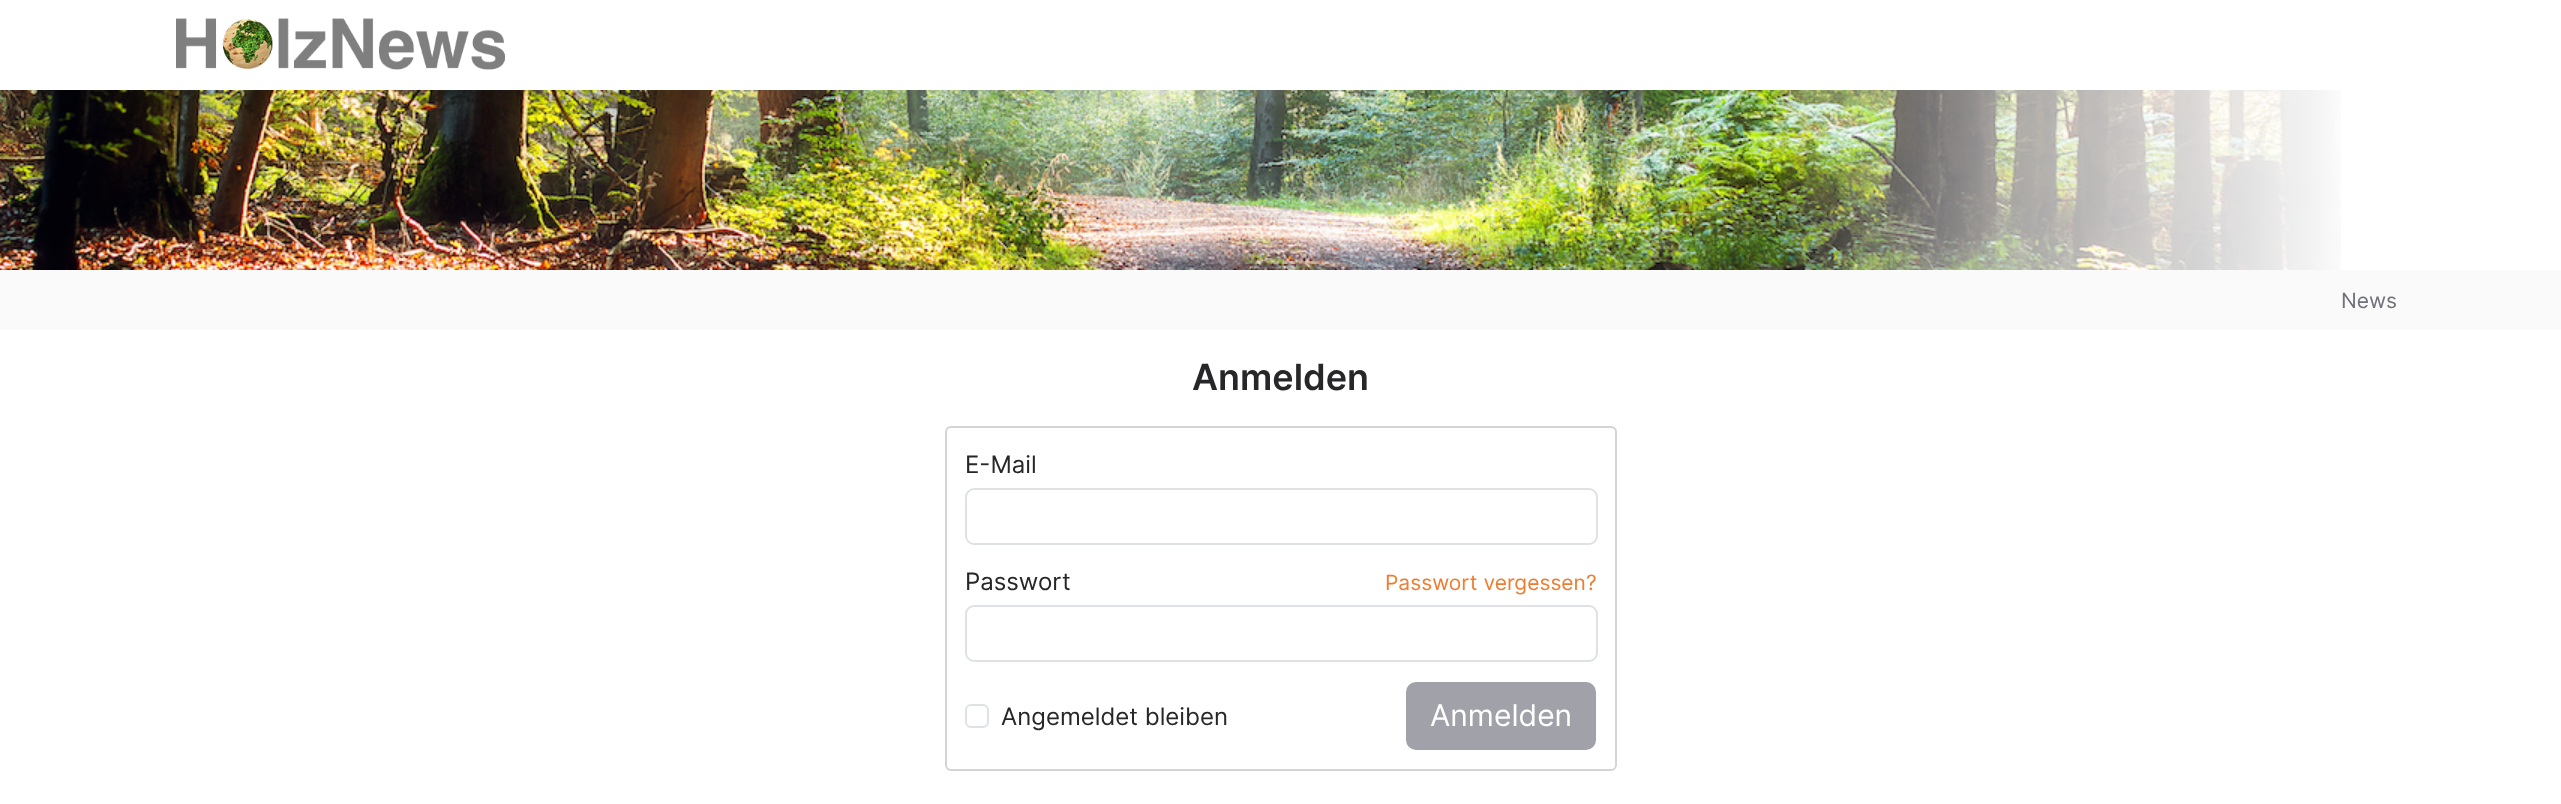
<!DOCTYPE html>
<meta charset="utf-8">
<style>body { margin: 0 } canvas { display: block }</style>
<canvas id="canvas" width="2561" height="804"></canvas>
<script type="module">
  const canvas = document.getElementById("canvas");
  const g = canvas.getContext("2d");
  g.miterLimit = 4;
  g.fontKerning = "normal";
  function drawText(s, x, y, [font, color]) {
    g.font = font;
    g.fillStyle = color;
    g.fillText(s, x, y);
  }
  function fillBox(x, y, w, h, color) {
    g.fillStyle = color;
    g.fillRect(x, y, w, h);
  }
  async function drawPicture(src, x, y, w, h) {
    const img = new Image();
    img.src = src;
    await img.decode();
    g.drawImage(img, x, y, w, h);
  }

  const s1 = ["21px Inter", "#71717A"];
  const s2 = ["600 36px Inter", "#27272A"];
  const s3 = ["24px Inter", "#27272A"];
  const s4 = ["21px Inter", "#ED7D31"];
  const s5 = ["30px Inter", "#FFFFFF"];

  fillBox(0, 0, 2561, 804, "#FFFFFF");
  await drawPicture("pic1.png", 176, 18, 329, 52);
  await drawPicture("pic2.png", 0, 90, 2341, 180);
  fillBox(0, 270, 2561, 60, "#FAFAFA");
  drawText("News", 2341, 308, s1);
  drawText("Anmelden", 1192, 390, s2);
  g.beginPath();
  g.roundRect(946, 427, 670, 343, 5);
  g.strokeStyle = "#D4D4D8";
  g.lineWidth = 2;
  g.stroke();
  drawText("E-Mail", 965, 473, s3);
  g.beginPath();
  g.roundRect(966, 489, 631, 55, 8);
  g.strokeStyle = "#DEE2E6";
  g.stroke();
  drawText("Passwort", 965, 590, s3);
  drawText("Passwort vergessen?", 1385, 590, s4);
  g.beginPath();
  g.roundRect(966, 606, 631, 55, 8);
  g.stroke();
  g.beginPath();
  g.roundRect(966, 705, 22, 22, 5);
  g.stroke();
  drawText("Angemeldet bleiben", 1001, 725, s3);
  g.fillStyle = "#A1A1AA";
  g.beginPath();
  g.roundRect(1405, 681, 192, 70, 11);
  g.fill();
  g.strokeStyle = "#FFFFFF";
  g.stroke();
  drawText("Anmelden", 1430, 726, s5);
</script>
